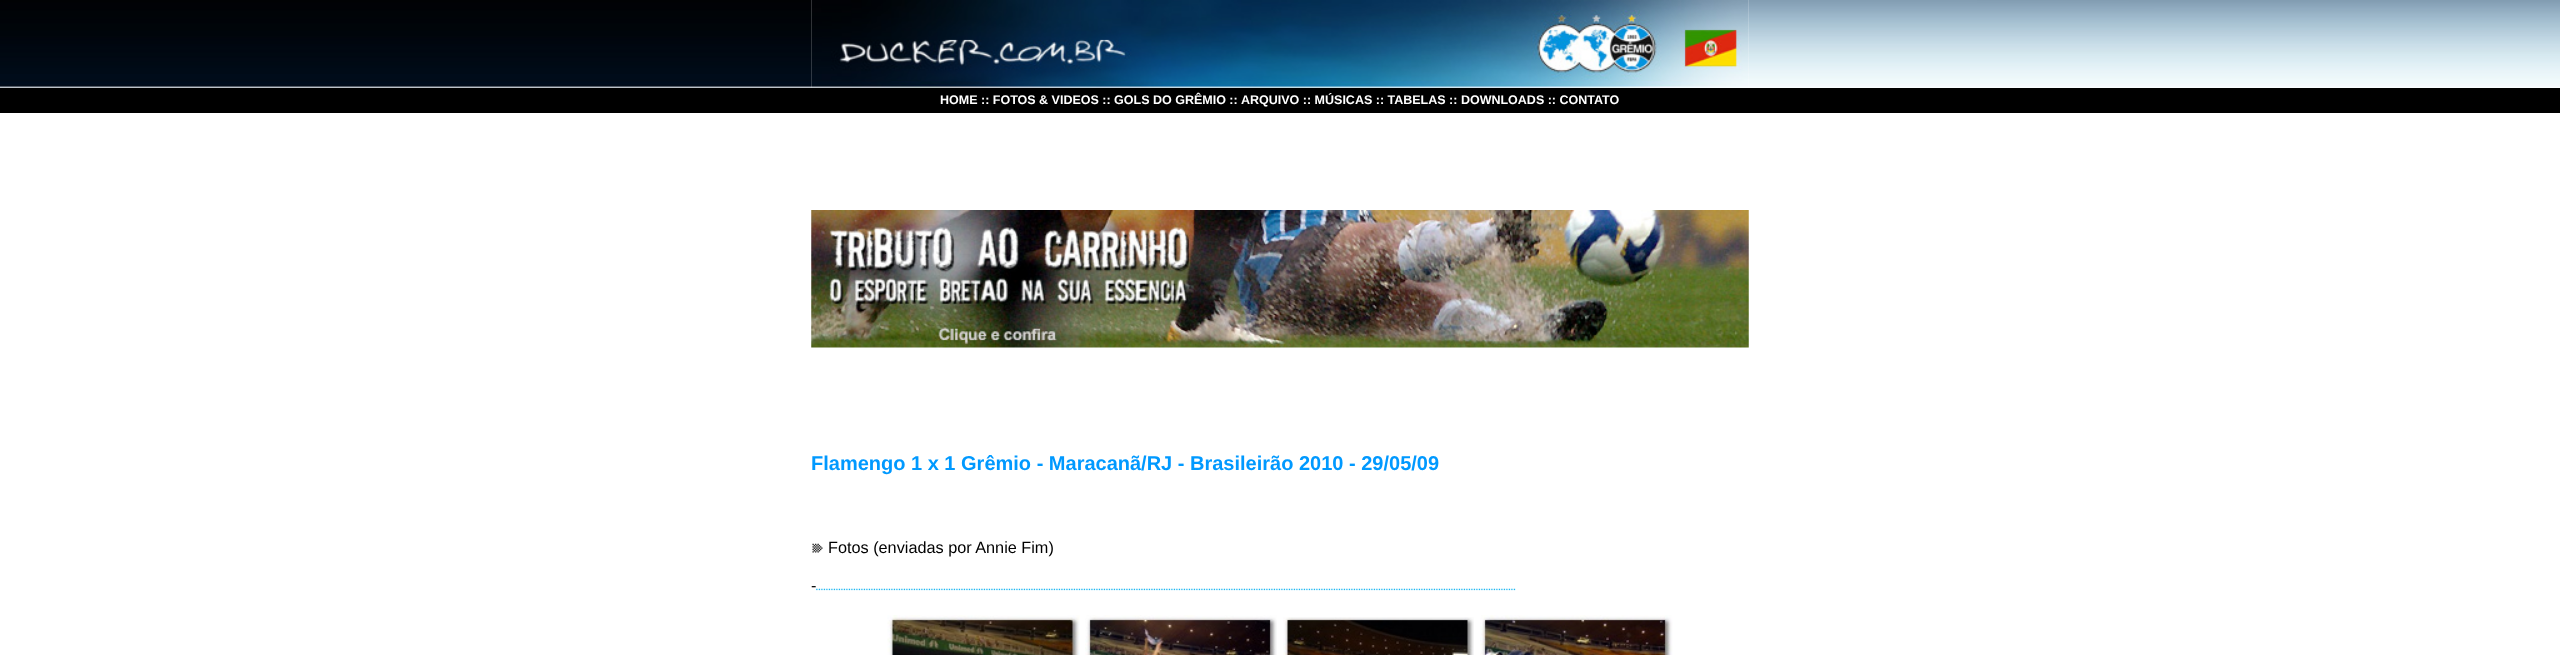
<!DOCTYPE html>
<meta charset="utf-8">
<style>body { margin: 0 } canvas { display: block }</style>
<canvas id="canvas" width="2560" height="655"></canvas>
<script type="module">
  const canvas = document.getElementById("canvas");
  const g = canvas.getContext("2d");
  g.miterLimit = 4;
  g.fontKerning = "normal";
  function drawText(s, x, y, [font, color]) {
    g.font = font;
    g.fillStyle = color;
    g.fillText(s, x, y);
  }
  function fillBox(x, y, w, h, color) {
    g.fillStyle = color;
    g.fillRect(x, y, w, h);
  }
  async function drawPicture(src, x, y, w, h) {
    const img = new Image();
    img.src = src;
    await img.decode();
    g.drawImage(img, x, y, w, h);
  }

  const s1 = ["bold 12.5px Liberation Sans", "#FFFFFF"];
  const s2 = ["bold 20px Liberation Sans", "#0099FF"];
  const s3 = ["16.25px Liberation Sans", "#000000"];

  fillBox(0, 0, 2560, 655, "#FFFFFF");
  await drawPicture("pic1.png", 0, 0, 812, 88);
  await drawPicture("pic2.png", 811, 0, 938, 88);
  await drawPicture("pic3.png", 1748, 0, 812, 88);
  fillBox(0, 88, 2560, 25, "#000000");
  drawText("HOME :: FOTOS & VIDEOS :: GOLS DO GRÊMIO ::", 940, 104, s1);
  drawText("ARQUIVO :: MÚSICAS :: TABELAS :: DOWNLOADS :: CONTATO", 1241, 104, s1);
  await drawPicture("pic4.png", 811, 210, 938, 138);
  drawText("Flamengo 1 x 1 Grêmio - Maracanã/RJ - Brasileirão 2010 - 29/05/09", 811, 470, s2);
  await drawPicture("pic5.png", 812, 543, 11, 10);
  drawText("Fotos (enviadas por Annie Fim)", 828, 553, s3);
  drawText("-", 811, 591, s3);
  await drawPicture("pic6.png", 816, 588, 350, 3);
  await drawPicture("pic7.png", 1166, 588, 350, 3);
  await drawPicture("pic8.png", 887, 615, 193, 40);
  await drawPicture("pic9.png", 1085, 615, 192, 40);
  await drawPicture("pic10.png", 1283, 617, 191, 38);
  await drawPicture("pic11.png", 1480, 615, 193, 40);
</script>
